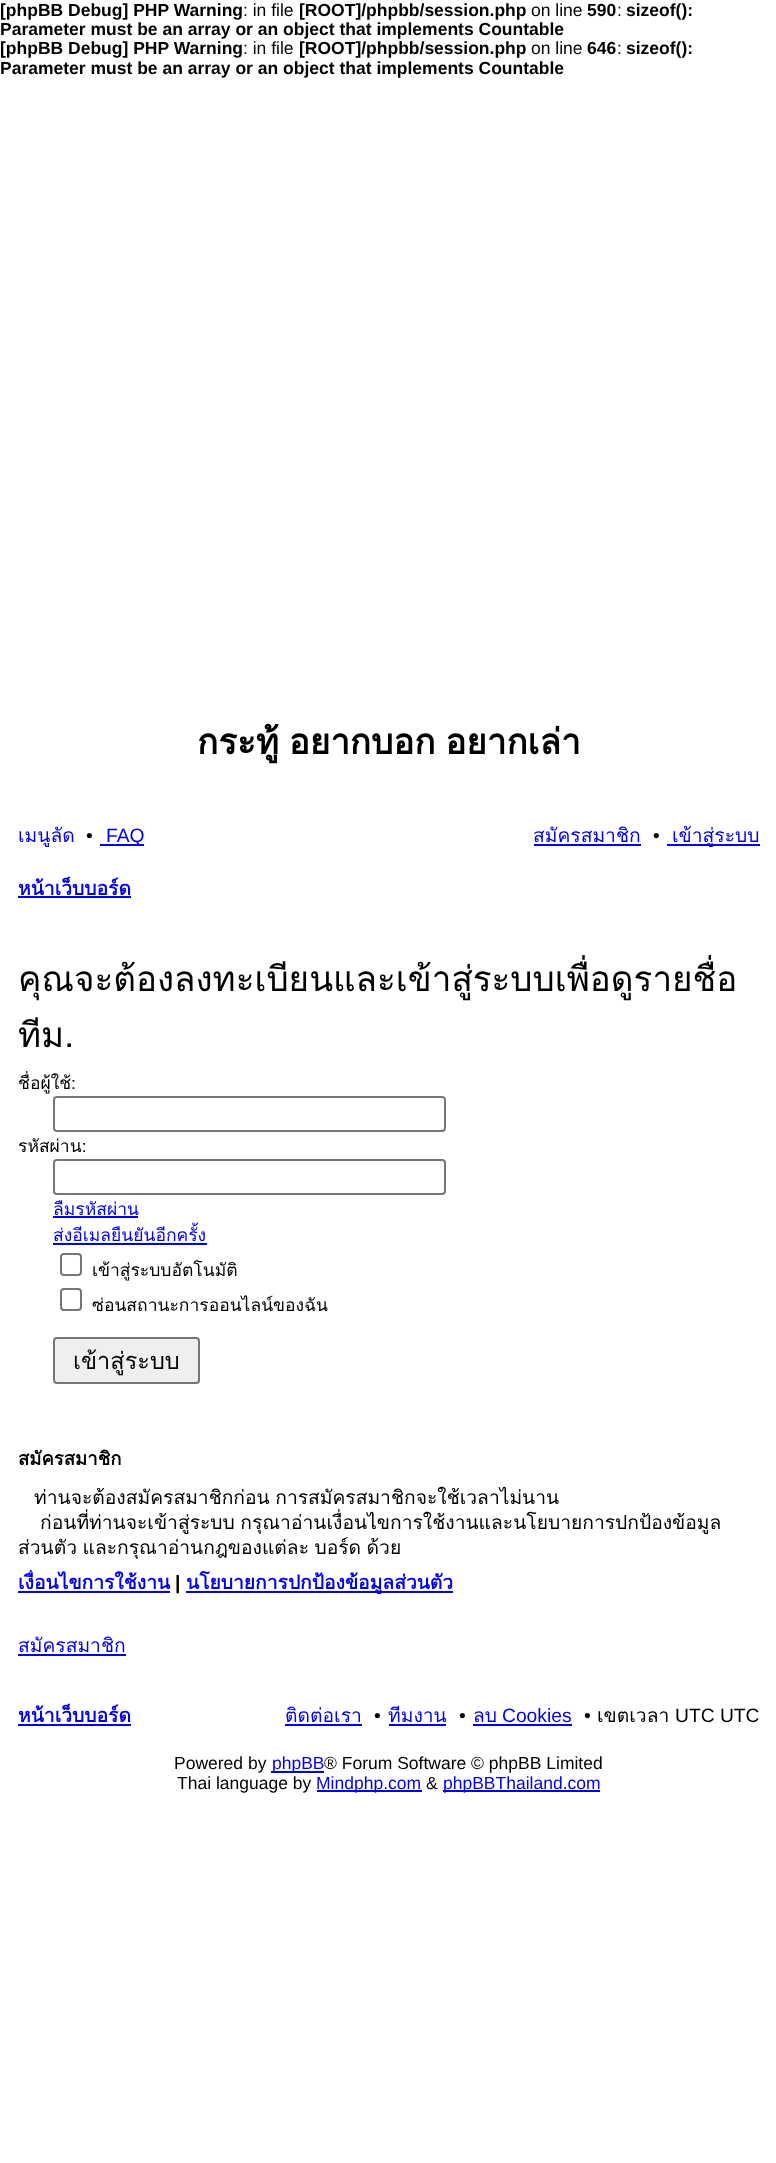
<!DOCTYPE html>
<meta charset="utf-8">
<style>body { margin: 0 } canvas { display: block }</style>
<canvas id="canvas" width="776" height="2163"></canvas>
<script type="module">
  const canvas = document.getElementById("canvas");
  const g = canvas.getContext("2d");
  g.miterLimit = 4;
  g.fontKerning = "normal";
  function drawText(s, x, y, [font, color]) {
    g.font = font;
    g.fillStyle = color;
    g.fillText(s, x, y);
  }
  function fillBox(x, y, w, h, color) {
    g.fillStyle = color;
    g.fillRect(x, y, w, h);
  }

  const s1 = ["bold 17.5px Liberation Sans", "#000000"];
  const s2 = ["17.5px Liberation Sans", "#000000"];
  const s3 = ["bold 35px Loma", "#000000"];
  const s4 = ["19.25px Loma", "#0000EE"];
  const s5 = ["19.25px Liberation Sans", "#000000"];
  const s6 = ["19.25px Liberation Sans", "#0000EE"];
  const s7 = ["bold 19.25px Loma", "#0000EE"];
  const s8 = ["35px Loma", "#000000"];
  const s9 = ["17.5px Loma", "#000000"];
  const s10 = ["17.5px Loma", "#0000EE"];
  const s11 = ["23.5px Loma", "#000000"];
  const s12 = ["bold 18.5px Loma", "#000000"];
  const s13 = ["19.25px Loma", "#000000"];
  const s14 = ["bold 19.25px Liberation Sans", "#000000"];
  const s15 = ["17.5px Liberation Sans", "#0000EE"];

  fillBox(0, 0, 776, 2163, "#FFFFFF");
  drawText("[phpBB Debug] PHP Warning", 0, 16, s1);
  drawText(": in file", 243, 16, s2);
  drawText("[ROOT]/phpbb/session.php", 299, 16, s1);
  drawText("on line", 531, 16, s2);
  drawText("590", 587, 16, s1);
  drawText(":", 617, 16, s2);
  drawText("sizeof():", 626, 16, s1);
  drawText("Parameter must be an array or an object that implements Countable", 0, 35, s1);
  drawText("[phpBB Debug] PHP Warning", 0, 54, s1);
  drawText(": in file", 243, 54, s2);
  drawText("[ROOT]/phpbb/session.php", 299, 54, s1);
  drawText("on line", 531, 54, s2);
  drawText("646", 587, 54, s1);
  drawText(":", 617, 54, s2);
  drawText("sizeof():", 626, 54, s1);
  drawText("Parameter must be an array or an object that implements Countable", 0, 74, s1);
  g.wordSpacing = "-2px";
  drawText("กระทู้ อยากบอก อยากเล่า", 197, 754, s3);
  g.wordSpacing = "0px";
  drawText("เมนูลัด", 18, 842, s4);
  drawText("•", 86, 842, s5);
  fillBox(100, 844, 44, 2, "#0000EE");
  drawText("FAQ", 106, 842, s6);
  drawText("สมัครสมาชิก", 533, 842, s4);
  fillBox(534, 844, 107, 2, "#0000EE");
  drawText("•", 653, 842, s5);
  fillBox(667, 844, 93, 2, "#0000EE");
  drawText("เข้าสู่ระบบ", 672, 842, s4);
  drawText("หน้าเว็บบอร์ด", 18, 895, s7);
  fillBox(18, 896, 113, 2, "#0000EE");
  drawText("คุณจะต้องลงทะเบียนและเข้าสู่ระบบเพื่อดูรายชื่อ", 18, 991, s8);
  drawText("ทีม.", 18, 1047, s8);
  g.save();
  g.beginPath();
  g.rect(18, 1069, 742, 63);
  g.clip();
  drawText("ชื่อผู้ใช้:", 18, 1089, s9);
  g.restore();
  g.beginPath();
  g.roundRect(54, 1097, 391, 34, 3);
  g.strokeStyle = "#767676";
  g.lineWidth = 2;
  g.stroke();
  drawText("รหัสผ่าน:", 18, 1152, s9);
  g.beginPath();
  g.roundRect(54, 1160, 391, 34, 3);
  g.stroke();
  drawText("ลืมรหัสผ่าน", 53, 1215, s10);
  fillBox(53, 1216, 85, 2, "#0000EE");
  drawText("ส่งอีเมลยืนยันอีกครั้ง", 53, 1241, s10);
  fillBox(53, 1243, 154, 2, "#0000EE");
  g.beginPath();
  g.roundRect(61, 1254, 20, 21, 3);
  g.stroke();
  drawText("เข้าสู่ระบบอัตโนมัติ", 92, 1276, s9);
  g.beginPath();
  g.roundRect(61, 1289, 20, 21, 3);
  g.stroke();
  drawText("ซ่อนสถานะการออนไลน์ของฉัน", 92, 1311, s9);
  g.fillStyle = "#EFEFEF";
  g.beginPath();
  g.roundRect(54, 1338, 145, 45, 3);
  g.fill();
  g.stroke();
  drawText("เข้าสู่ระบบ", 73, 1369, s11);
  drawText("สมัครสมาชิก", 18, 1465, s12);
  g.wordSpacing = "-1px";
  drawText("ท่านจะต้องสมัครสมาชิกก่อน การสมัครสมาชิกจะใช้เวลาไม่นาน", 34, 1504, s13);
  drawText("ก่อนที่ท่านจะเข้าสู่ระบบ กรุณาอ่านเงื่อนไขการใช้งานและนโยบายการปกป้องข้อมูล", 40, 1529, s13);
  g.save();
  g.beginPath();
  g.rect(18, 1484, 742, 75);
  g.clip();
  drawText("ส่วนตัว และกรุณาอ่านกฎของแต่ละ บอร์ด ด้วย", 18, 1554, s13);
  g.restore();
  g.save();
  g.beginPath();
  g.rect(18, 1570, 742, 24);
  g.clip();
  g.wordSpacing = "0px";
  drawText("เงื่อนไขการใช้งาน", 18, 1589, s7);
  g.restore();
  g.wordSpacing = "0px";
  drawText("|", 175, 1589, s14);
  fillBox(18, 1591, 152, 2, "#0000EE");
  fillBox(186, 1591, 267, 2, "#0000EE");
  drawText("นโยบายการปกป้องข้อมูลส่วนตัว", 186, 1589, s7);
  drawText("สมัครสมาชิก", 18, 1652, s4);
  fillBox(18, 1654, 108, 2, "#0000EE");
  drawText("หน้าเว็บบอร์ด", 18, 1722, s7);
  fillBox(18, 1724, 113, 2, "#0000EE");
  drawText("ติดต่อเรา", 285, 1722, s4);
  fillBox(285, 1724, 77, 2, "#0000EE");
  drawText("•", 374, 1722, s5);
  drawText("ทีมงาน", 388, 1722, s4);
  fillBox(389, 1724, 57, 2, "#0000EE");
  drawText("•", 459, 1722, s5);
  drawText("ลบ", 473, 1722, s4);
  fillBox(473, 1724, 99, 2, "#0000EE");
  drawText("Cookies", 502, 1722, s6);
  drawText("•", 584, 1722, s5);
  drawText("เขตเวลา", 597, 1722, s13);
  drawText("UTC UTC", 675, 1722, s5);
  drawText("Powered by", 174, 1769, s2);
  fillBox(271, 1771, 53, 2, "#0000EE");
  drawText("phpBB", 272, 1769, s15);
  drawText("® Forum Software © phpBB Limited", 324, 1769, s2);
  drawText("Thai language by", 177, 1789, s2);
  fillBox(317, 1790, 105, 2, "#0000EE");
  drawText("Mindphp.com", 316, 1789, s15);
  drawText("&", 426, 1789, s2);
  fillBox(443, 1790, 157, 2, "#0000EE");
  drawText("phpBBThailand.com", 443, 1789, s15);
</script>
